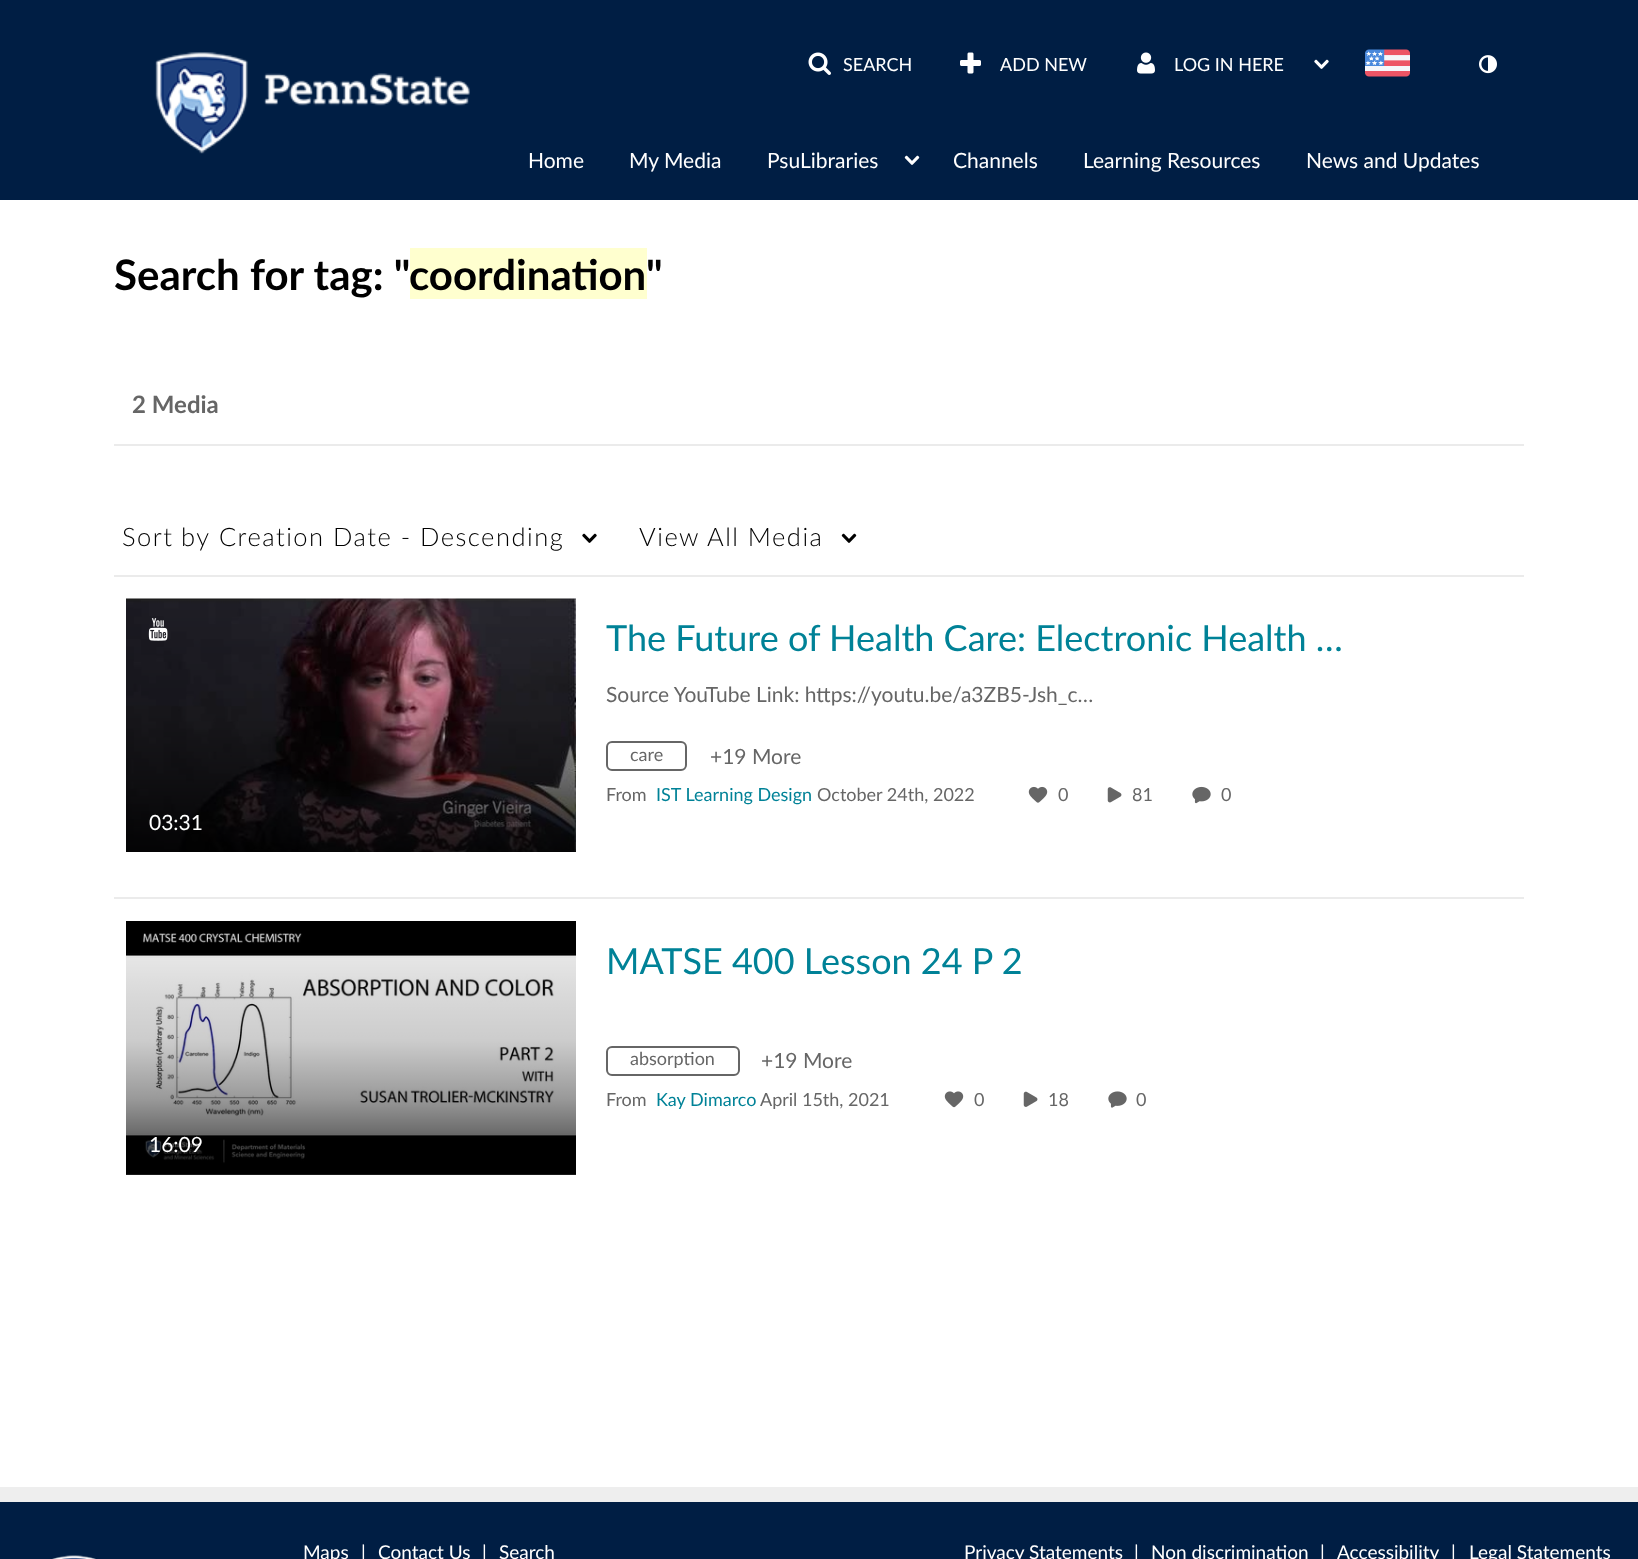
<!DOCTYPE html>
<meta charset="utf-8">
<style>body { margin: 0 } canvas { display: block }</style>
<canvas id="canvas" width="1638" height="1559"></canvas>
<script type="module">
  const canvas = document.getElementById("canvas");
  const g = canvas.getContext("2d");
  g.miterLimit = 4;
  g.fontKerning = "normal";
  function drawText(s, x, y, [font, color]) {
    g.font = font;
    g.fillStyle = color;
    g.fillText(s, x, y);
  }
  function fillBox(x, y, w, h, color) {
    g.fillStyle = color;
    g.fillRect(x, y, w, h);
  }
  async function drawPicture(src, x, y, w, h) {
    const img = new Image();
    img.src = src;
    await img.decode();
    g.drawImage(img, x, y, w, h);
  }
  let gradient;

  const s1 = ["18px Lato", "#FFFFFF"];
  const s2 = ["21px Lato", "#FFFFFF"];
  const s3 = ["bold 42px Lato", "#000000"];
  const s4 = ["bold 24px Lato", "#666666"];
  const s5 = ["300 25.5px Lato", "#000000"];
  const s6 = ["36px Lato", "#008297"];
  const s7 = ["21px Lato", "#666666"];
  const s8 = ["18px Lato", "#666666"];
  const s9 = ["18px Lato", "#008297"];
  const s10 = ["19px Lato", "#FFFFFF"];

  fillBox(0, 0, 1638, 1559, "#FFFFFF");
  fillBox(0, 0, 1638, 200, "#001E44");
  await drawPicture("pic1.png", 155, 52, 315, 102);
  await drawPicture("pic2.png", 808, 52, 23, 23);
  drawText("SEARCH", 843, 71, s1);
  await drawPicture("pic3.png", 960, 52, 21, 22);
  drawText("ADD NEW", 1000, 71, s1);
  await drawPicture("pic4.png", 1137, 52, 18, 22);
  drawText("LOG IN HERE", 1174, 71, s1);
  await drawPicture("pic5.png", 1314, 59, 15, 10);
  await drawPicture("pic6.png", 1365, 49, 45, 28);
  await drawPicture("pic7.png", 1479, 55, 18, 19);
  drawText("Home", 528, 168, s2);
  drawText("My Media", 629, 168, s2);
  drawText("PsuLibraries", 767, 168, s2);
  await drawPicture("pic8.png", 904, 155, 16, 10);
  drawText("Channels", 953, 168, s2);
  drawText("Learning Resources", 1083, 168, s2);
  drawText("News and Updates", 1306, 168, s2);
  drawText("Search for tag: \"", 114, 290, s3);
  fillBox(410, 248, 237, 51, "#FFFFCF");
  drawText("coordination", 409, 290, s3);
  drawText("\"", 646, 290, s3);
  fillBox(114, 444, 1410, 2, "#EBEBEB");
  drawText("2 Media", 132, 413, s4);
  g.letterSpacing = "1.5px";
  g.wordSpacing = "-1px";
  drawText("Sort by", 122, 546, s5);
  g.wordSpacing = "0px";
  drawText("Creation Date - Descending", 219, 546, s5);
  await drawPicture("pic9.png", 582, 533, 15, 10);
  drawText("View", 639, 546, s5);
  drawText("All Media", 707, 546, s5);
  await drawPicture("pic10.png", 841, 533, 16, 10);
  fillBox(114, 575, 1410, 2, "#EBEBEB");
  g.letterSpacing = "0px";
  drawText("The Future of Health Care: Electronic Health …", 606, 651, s6);
  drawText("Source YouTube Link: https://youtu.be/a3ZB5-Jsh_c…", 606, 702, s7);
  g.beginPath();
  g.roundRect(607, 742, 79, 28, 5);
  g.strokeStyle = "#666666";
  g.lineWidth = 2;
  g.stroke();
  drawText("care", 630, 761, s8);
  drawText("+19 More", 710, 764, s7);
  drawText("From", 606, 801, s8);
  drawText("IST Learning Design", 656, 801, s9);
  drawText("October 24th, 2022", 817, 801, s8);
  await drawPicture("pic11.png", 1028, 786, 20, 17);
  drawText("0", 1058, 801, s8);
  await drawPicture("pic12.png", 1107, 787, 15, 16);
  drawText("81", 1132, 801, s8);
  await drawPicture("pic13.png", 1192, 786, 19, 18);
  drawText("0", 1221, 801, s8);
  await drawPicture("pic14.png", 126, 598, 450, 254);
  await drawPicture("pic15.png", 148, 618, 20, 23);
  drawText("03:31", 149, 830, s2);
  fillBox(114, 897, 1410, 2, "#EBEBEB");
  drawText("MATSE 400 Lesson 24 P 2", 606, 974, s6);
  g.beginPath();
  g.roundRect(607, 1047, 132, 28, 5);
  g.stroke();
  drawText("absorption", 630, 1065, s8);
  drawText("+19 More", 761, 1068, s7);
  drawText("From", 606, 1106, s8);
  drawText("Kay Dimarco", 656, 1106, s9);
  drawText("April 15th, 2021", 760, 1106, s8);
  await drawPicture("pic16.png", 944, 1091, 20, 17);
  drawText("0", 974, 1106, s8);
  await drawPicture("pic17.png", 1023, 1091, 15, 16);
  drawText("18", 1048, 1106, s8);
  await drawPicture("pic18.png", 1108, 1091, 19, 17);
  drawText("0", 1136, 1106, s8);
  await drawPicture("pic19.png", 126, 921, 450, 254);
  gradient = g.createLinearGradient(351, 1175, 351, 921);
  gradient.addColorStop(0, "rgba(0, 0, 0, 0.8)");
  gradient.addColorStop(0.3, "rgba(0, 0, 0, 0.4)");
  gradient.addColorStop(0.53, "rgba(0, 0, 0, 0.2)");
  gradient.addColorStop(0.71, "rgba(0, 0, 0, 0.15)");
  gradient.addColorStop(1, "rgba(0, 0, 0, 0.05)");
  g.fillStyle = gradient;
  g.fillRect(126, 933, 450, 242);
  drawText("16:09", 149, 1152, s2);
  fillBox(0, 1487, 1638, 15, "#EEEEEE");
  fillBox(0, 1502, 1638, 57, "#001E44");
  await drawPicture("pic20.png", 52, 1555, 44, 4);
  drawText("Maps", 303, 1559, s10);
  drawText("|", 361, 1559, s10);
  drawText("Contact Us", 378, 1559, s10);
  drawText("|", 482, 1559, s10);
  drawText("Search", 499, 1559, s10);
  drawText("Privacy Statements", 964, 1559, s10);
  drawText("|", 1134, 1559, s10);
  drawText("Non discrimination", 1151, 1559, s10);
  drawText("|", 1320, 1559, s10);
  drawText("Accessibility", 1337, 1559, s10);
  drawText("|", 1451, 1559, s10);
  drawText("Legal Statements", 1469, 1559, s10);
</script>
